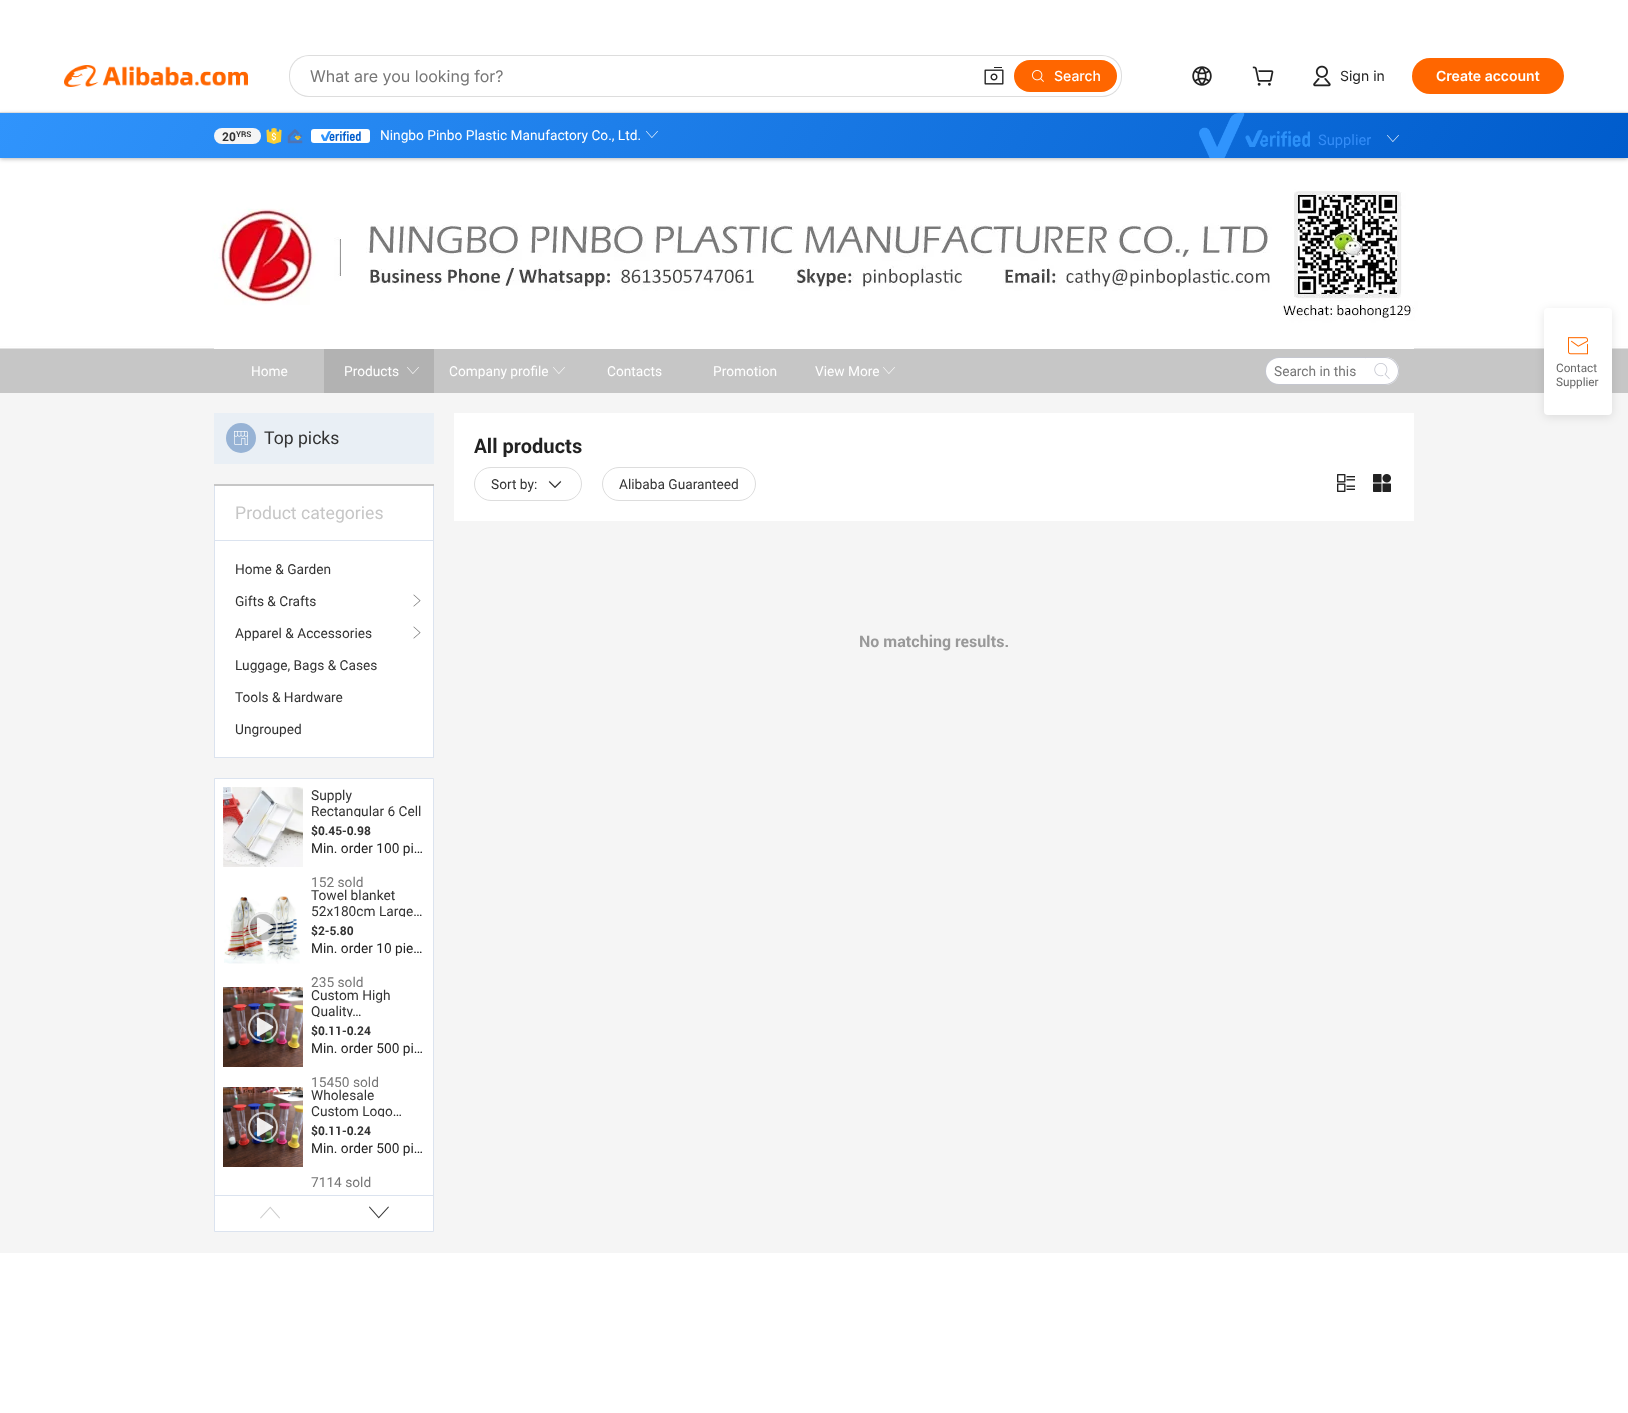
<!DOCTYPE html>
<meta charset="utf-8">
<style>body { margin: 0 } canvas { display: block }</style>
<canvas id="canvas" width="1628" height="1413"></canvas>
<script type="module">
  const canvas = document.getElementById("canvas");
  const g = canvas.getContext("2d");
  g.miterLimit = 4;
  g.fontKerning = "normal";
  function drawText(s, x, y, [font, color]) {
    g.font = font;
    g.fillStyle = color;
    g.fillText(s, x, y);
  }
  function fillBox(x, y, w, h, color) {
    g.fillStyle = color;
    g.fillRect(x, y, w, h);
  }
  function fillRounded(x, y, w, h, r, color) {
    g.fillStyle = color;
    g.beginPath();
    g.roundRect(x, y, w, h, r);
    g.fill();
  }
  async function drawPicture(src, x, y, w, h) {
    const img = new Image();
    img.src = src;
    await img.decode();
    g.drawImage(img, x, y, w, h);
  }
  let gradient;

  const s1 = ["16px Inter", "#767676"];
  const s2 = ["500 14px Inter", "#FFFFFF"];
  const s3 = ["14px Inter", "#222222"];
  const s4 = ["600 14px Inter", "#FFFFFF"];
  const s5 = ["bold 12px Roboto", "#333333"];
  const s6 = ["bold 8px Roboto", "#333333"];
  const s7 = ["14px Roboto", "#FFFFFF"];
  const s8 = ["15px Roboto", "#348DF8"];
  const s9 = ["14px Roboto", "#767676"];
  const s10 = ["18px Roboto", "#333333"];
  const s11 = ["18px Roboto", "#C6C6C6"];
  const s12 = ["14px Roboto", "#333333"];
  const s13 = ["14px Roboto", "#222222"];
  const s14 = ["bold 20px Roboto", "#222222"];
  const s15 = ["bold 16px Roboto", "#999999"];
  const s16 = ["12px Roboto", "#666666"];

  fillBox(0, 0, 1628, 1413, "#FFFFFF");
  g.fillStyle = "rgba(0, 0, 0, 0.28)";
  g.filter = "blur(2px)";
  g.beginPath();
  g.rect(0, 114, 1628, 45);
  g.fill();
  g.filter = "none";
  fillBox(0, 112, 1628, 1, "#DDDDDD");
  await drawPicture("pic1.png", 64, 65, 184, 22);
  fillRounded(289, 55, 833, 42, 20, "#DDDDDD");
  fillRounded(290, 56, 831, 40, 19, "#FFFFFF");
  drawText("What are you looking for?", 310, 82, s1);
  await drawPicture("pic2.png", 984, 67, 20, 18);
  fillRounded(1014, 60, 103, 32, 16, "#FF6600");
  await drawPicture("pic3.png", 1032, 70, 12, 12);
  drawText("Search", 1054, 81, s2);
  await drawPicture("pic4.png", 1192, 66, 20, 20);
  await drawPicture("pic5.png", 1252, 66, 22, 20);
  await drawPicture("pic6.png", 1313, 65, 18, 22);
  drawText("Sign in", 1340, 81, s3);
  fillRounded(1412, 58, 152, 36, 18, "#FF6600");
  drawText("Create account", 1436, 81, s4);
  gradient = g.createLinearGradient(170, -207, 1458, 478);
  gradient.addColorStop(0, "#3094FC");
  gradient.addColorStop(1, "#005CCC");
  g.fillStyle = gradient;
  g.fillRect(0, 113, 1628, 45);
  fillRounded(214, 128, 47, 16, 8, "#F5F5F5");
  drawText("20", 222, 141, s5);
  drawText("YRS", 236, 137, s6);
  await drawPicture("pic7.png", 266, 128, 16, 16);
  await drawPicture("pic8.png", 287, 129, 16, 15);
  fillRounded(311, 129, 59, 14, 3, "#FFFFFF");
  await drawPicture("pic9.png", 321, 131, 40, 10);
  drawText("Ningbo Pinbo Plastic Manufactory Co., Ltd.", 380, 140, s7);
  await drawPicture("pic10.png", 646, 131, 12, 7);
  await drawPicture("pic11.png", 1199, 113, 111, 45);
  drawText("Supplier", 1318, 145, s8);
  await drawPicture("pic12.png", 1387, 135, 12, 7);
  await drawPicture("pic17.png", 0, 189, 1628, 160);
  await drawPicture("pic13.png", 214, 189, 1200, 160);
  fillBox(0, 349, 1628, 44, "#C6C6C6");
  drawText("Home", 251, 376, s7);
  fillBox(324, 349, 110, 44, "#B2B2B2");
  drawText("Products", 344, 376, s7);
  await drawPicture("pic14.png", 407, 367, 12, 7);
  drawText("Company profile", 449, 376, s7);
  await drawPicture("pic15.png", 553, 367, 12, 7);
  drawText("Contacts", 607, 376, s7);
  drawText("Promotion", 713, 376, s7);
  drawText("View More", 815, 376, s7);
  await drawPicture("pic15.png", 883, 367, 12, 7);
  g.fillStyle = "#C4C6CF";
  g.beginPath();
  g.moveTo(1279, 357);
  g.lineTo(1366, 357);
  g.lineTo(1366, 385);
  g.lineTo(1279, 385);
  g.bezierCurveTo(1271, 385, 1265, 379, 1265, 371);
  g.bezierCurveTo(1265, 363, 1271, 357, 1279, 357);
  g.closePath();
  g.moveTo(1279, 358);
  g.lineTo(1366, 358);
  g.lineTo(1366, 384);
  g.lineTo(1279, 384);
  g.bezierCurveTo(1272, 384, 1266, 378, 1266, 371);
  g.bezierCurveTo(1266, 364, 1272, 358, 1279, 358);
  g.closePath();
  g.fill("evenodd");
  g.fillStyle = "#FFFFFF";
  g.beginPath();
  g.roundRect(1266, 358, 100, 26, [13, 0.5, 0.5, 13]);
  g.fill();
  drawText("Search in this", 1274, 376, s9);
  g.fillStyle = "#FFFFFF";
  g.beginPath();
  g.roundRect(1366, 357, 33, 28, [0, 14, 14, 0]);
  g.fill();
  g.fillStyle = "#C4C6CF";
  g.beginPath();
  g.moveTo(1366, 357);
  g.lineTo(1385, 357);
  g.bezierCurveTo(1392.5, 357, 1399, 363.5, 1399, 371);
  g.bezierCurveTo(1399, 378.5, 1392.5, 385, 1385, 385);
  g.lineTo(1366, 385);
  g.closePath();
  g.moveTo(1366, 358);
  g.lineTo(1385, 358);
  g.bezierCurveTo(1392, 358, 1398, 364, 1398, 371);
  g.bezierCurveTo(1398, 378, 1392, 384, 1385, 384);
  g.lineTo(1366, 384);
  g.closePath();
  g.fill("evenodd");
  await drawPicture("pic16.png", 1374, 363, 16, 16);
  fillBox(0, 393, 1628, 860, "#F5F5F5");
  fillBox(214, 413, 220, 51, "#E9EFF5");
  g.fillStyle = "#97B3D5";
  g.beginPath();
  g.arc(241, 438, 15, 0, Math.PI * 2);
  g.fill();
  await drawPicture("pic18.png", 234, 431, 14, 14);
  drawText("Top picks", 264, 444, s10);
  fillBox(215, 486, 218, 271, "#FFFFFF");
  fillBox(214, 484, 220, 2, "#C6C6C6");
  fillBox(433, 486, 1, 272, "#DBE3EF");
  fillBox(214, 757, 220, 1, "#DBE3EF");
  fillBox(214, 486, 1, 272, "#DBE3EF");
  fillBox(215, 540, 218, 1, "#DBE3EF");
  drawText("Product categories", 235, 519, s11);
  drawText("Home & Garden", 235, 574, s12);
  drawText("Gifts & Crafts", 235, 606, s12);
  await drawPicture("pic19.png", 413, 594, 8, 13);
  drawText("Apparel & Accessories", 235, 638, s12);
  await drawPicture("pic19.png", 413, 626, 8, 13);
  drawText("Luggage, Bags & Cases", 235, 670, s12);
  drawText("Tools & Hardware", 235, 702, s12);
  drawText("Ungrouped", 235, 734, s12);
  g.fillStyle = "#FFFFFF";
  g.beginPath();
  g.rect(214.5, 778.5, 219, 453);
  g.fill();
  g.strokeStyle = "#DBE3EF";
  g.stroke();
  await drawPicture("pic20.png", 223, 787, 80, 80);
  drawText("Supply", 311, 800, s12);
  g.save();
  g.beginPath();
  g.rect(311, 787, 114, 30);
  g.clip();
  drawText("Rectangular 6 Cell", 311, 816, s12);
  g.restore();
  drawText("$0.45-0.98", 311, 835, s5);
  drawText("Min. order 100 pi…", 311, 853, s13);
  g.save();
  g.beginPath();
  g.rect(311, 787, 114, 100);
  g.clip();
  drawText("152 sold", 311, 887, s9);
  g.restore();
  await drawPicture("pic21.png", 224, 896, 76, 68);
  g.fillStyle = "rgba(0, 0, 0, 0.27)";
  g.beginPath();
  g.arc(263, 927, 15, 0, Math.PI * 2);
  g.fill();
  g.beginPath();
  g.arc(263, 927, 14, 0, Math.PI * 2);
  g.strokeStyle = "rgba(255, 255, 255, 0.72)";
  g.lineWidth = 2;
  g.stroke();
  await drawPicture("pic22.png", 256, 917, 18, 20);
  drawText("Towel blanket", 311, 900, s12);
  g.save();
  g.beginPath();
  g.rect(311, 887, 114, 30);
  g.clip();
  drawText("52x180cm Large…", 311, 916, s12);
  g.restore();
  drawText("$2-5.80", 311, 935, s5);
  drawText("Min. order 10 pie…", 311, 953, s13);
  g.save();
  g.beginPath();
  g.rect(311, 887, 114, 100);
  g.clip();
  drawText("235 sold", 311, 987, s9);
  g.restore();
  await drawPicture("pic23.png", 223, 987, 80, 80);
  g.fillStyle = "rgba(0, 0, 0, 0.27)";
  g.beginPath();
  g.arc(263, 1027, 15, 0, Math.PI * 2);
  g.fill();
  g.beginPath();
  g.arc(263, 1027, 14, 0, Math.PI * 2);
  g.stroke();
  await drawPicture("pic24.png", 256, 1017, 18, 20);
  drawText("Custom High", 311, 1000, s12);
  g.save();
  g.beginPath();
  g.rect(311, 987, 114, 30);
  g.clip();
  drawText("Quality…", 311, 1016, s12);
  g.restore();
  drawText("$0.11-0.24", 311, 1035, s5);
  drawText("Min. order 500 pi…", 311, 1053, s13);
  g.save();
  g.beginPath();
  g.rect(311, 987, 114, 100);
  g.clip();
  drawText("15450 sold", 311, 1087, s9);
  g.restore();
  await drawPicture("pic25.png", 223, 1087, 80, 80);
  g.fillStyle = "rgba(0, 0, 0, 0.27)";
  g.beginPath();
  g.arc(263, 1127, 15, 0, Math.PI * 2);
  g.fill();
  g.beginPath();
  g.arc(263, 1127, 14, 0, Math.PI * 2);
  g.stroke();
  await drawPicture("pic26.png", 256, 1117, 18, 20);
  drawText("Wholesale", 311, 1100, s12);
  g.save();
  g.beginPath();
  g.rect(311, 1087, 114, 30);
  g.clip();
  drawText("Custom Logo…", 311, 1116, s12);
  g.restore();
  drawText("$0.11-0.24", 311, 1135, s5);
  drawText("Min. order 500 pi…", 311, 1153, s13);
  drawText("7114 sold", 311, 1187, s9);
  fillBox(215, 1195, 218, 1, "#DBE3EF");
  await drawPicture("pic27.png", 260, 1206, 20, 13);
  await drawPicture("pic28.png", 369, 1206, 20, 13);
  fillBox(454, 413, 960, 108, "#FFFFFF");
  drawText("All products", 474, 453, s14);
  g.beginPath();
  g.roundRect(474.5, 467.5, 107, 33, 16.5);
  g.strokeStyle = "#DDDDDD";
  g.lineWidth = 1;
  g.stroke();
  drawText("Sort by:", 491, 489, s12);
  await drawPicture("pic29.png", 548, 480, 14, 8);
  g.beginPath();
  g.roundRect(602.5, 467.5, 153, 33, 16.5);
  g.stroke();
  drawText("Alibaba Guaranteed", 619, 489, s12);
  await drawPicture("pic30.png", 1337, 474, 18, 18);
  await drawPicture("pic31.png", 1373, 474, 18, 18);
  drawText("No matching results.", 859, 647, s15);
  g.fillStyle = "rgba(0, 0, 0, 0.1)";
  g.filter = "blur(5px)";
  g.beginPath();
  g.roundRect(1544, 310, 68, 107, 4);
  g.fill();
  g.filter = "none";
  fillRounded(1544, 308, 68, 107, 4, "#FFFFFF");
  await drawPicture("pic32.png", 1568, 337, 20, 18);
  drawText("Contact", 1556, 372, s16);
  drawText("Supplier", 1556, 386, s16);
</script>
